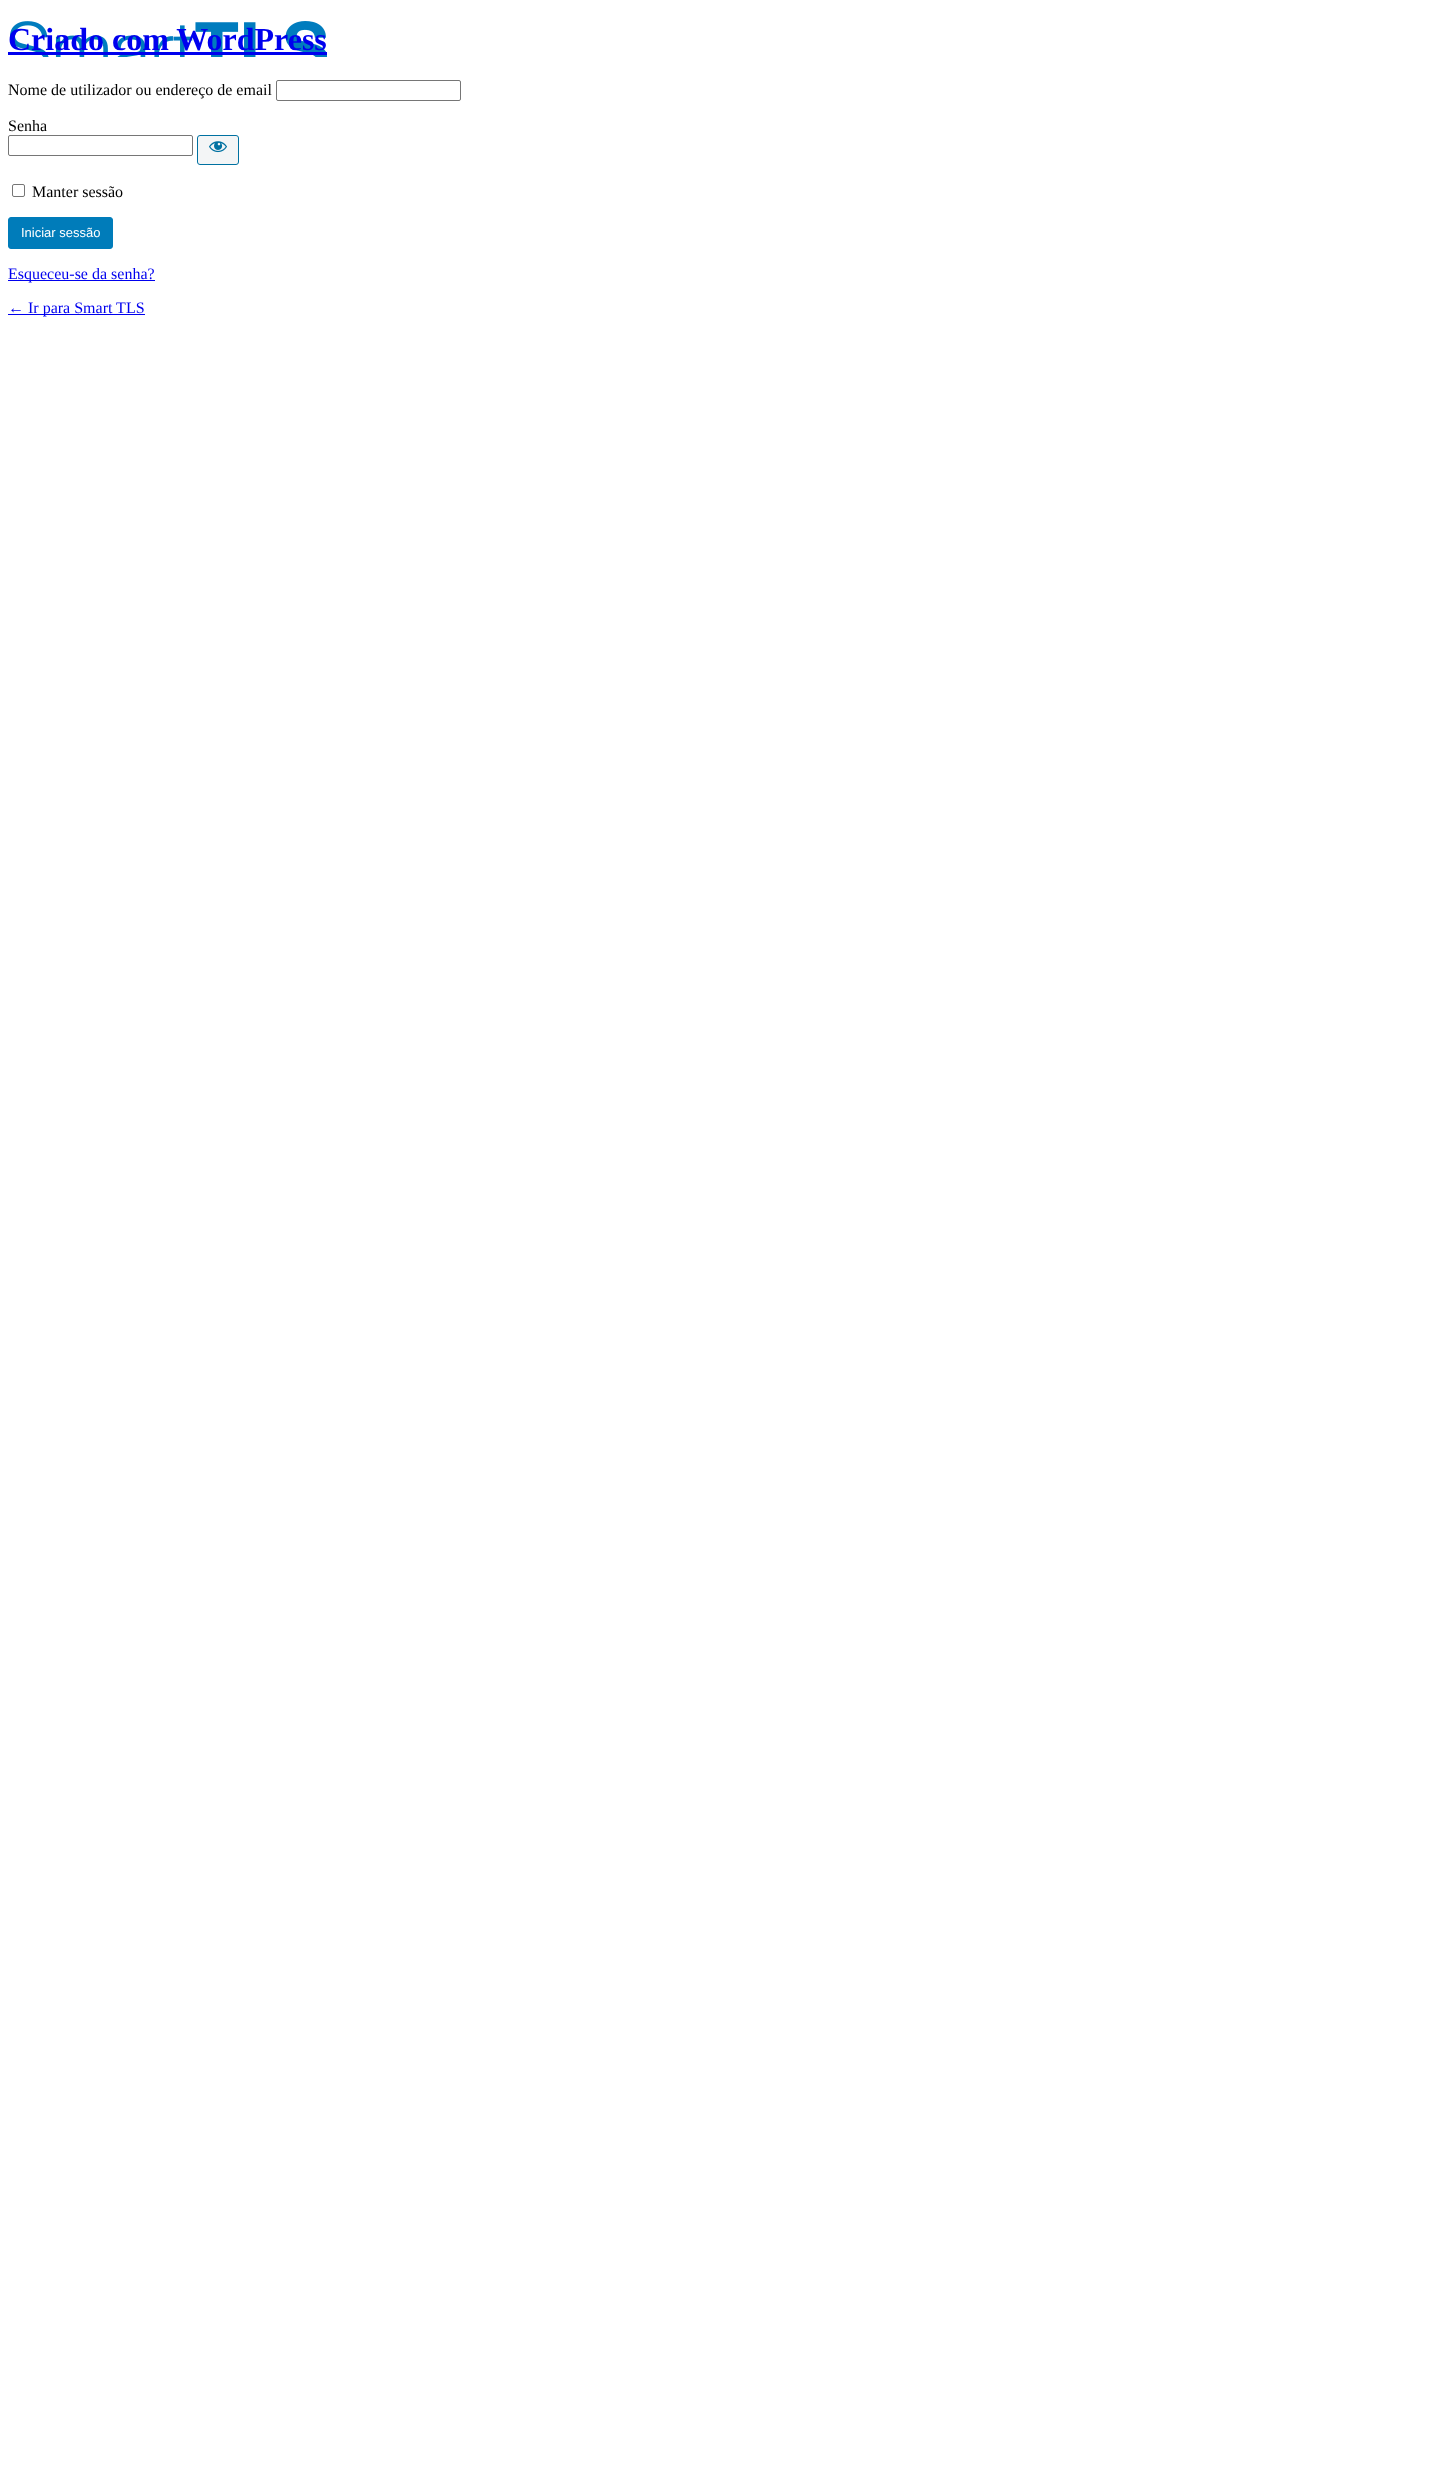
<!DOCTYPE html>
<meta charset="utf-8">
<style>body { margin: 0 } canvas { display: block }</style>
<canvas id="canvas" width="1432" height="2491"></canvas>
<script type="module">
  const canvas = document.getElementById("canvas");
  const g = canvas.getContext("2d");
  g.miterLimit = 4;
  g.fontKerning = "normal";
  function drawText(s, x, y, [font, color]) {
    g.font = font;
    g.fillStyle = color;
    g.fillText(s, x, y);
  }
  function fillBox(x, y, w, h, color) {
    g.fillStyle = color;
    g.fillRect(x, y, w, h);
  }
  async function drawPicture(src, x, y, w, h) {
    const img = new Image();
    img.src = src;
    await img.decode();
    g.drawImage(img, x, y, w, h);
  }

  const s1 = ["bold 32px Liberation Serif", "#0000EE"];
  const s2 = ["16px Liberation Serif", "#000000"];
  const s3 = ["13px Liberation Sans", "#FFFFFF"];
  const s4 = ["16px Liberation Serif", "#0000EE"];

  fillBox(0, 0, 1432, 2491, "#FFFFFF");
  await drawPicture("pic1.png", 10, 21, 317, 36);
  drawText("Criado com WordPress", 8, 50, s1);
  fillBox(8, 52, 319, 3, "#0000EE");
  drawText("Nome de utilizador ou endereço de email", 8, 95, s2);
  g.beginPath();
  g.roundRect(276.5, 80.5, 184, 20, 1.5);
  g.strokeStyle = "#767676";
  g.stroke();
  drawText("Senha", 8, 131, s2);
  g.beginPath();
  g.roundRect(8.5, 135.5, 184, 20, 1.5);
  g.stroke();
  g.fillStyle = "#F3F5F6";
  g.beginPath();
  g.roundRect(197.5, 135.5, 41, 29, 2.5);
  g.fill();
  g.strokeStyle = "#0071A1";
  g.stroke();
  await drawPicture("pic2.png", 209, 141, 18, 12);
  g.beginPath();
  g.roundRect(12.5, 184.5, 12, 12, 1.5);
  g.strokeStyle = "#767676";
  g.stroke();
  drawText("Manter sessão", 32, 197, s2);
  g.fillStyle = "#007CBA";
  g.beginPath();
  g.roundRect(8.5, 217.5, 104, 31, 2.5);
  g.fill();
  g.strokeStyle = "#007CBA";
  g.stroke();
  drawText("Iniciar sessão", 21, 237, s3);
  fillBox(8, 280, 147, 1, "#0000EE");
  drawText("Esqueceu-se da senha?", 8, 279, s4);
  fillBox(8, 314, 137, 1, "#0000EE");
  drawText("← Ir para Smart TLS", 8, 313, s4);
</script>
